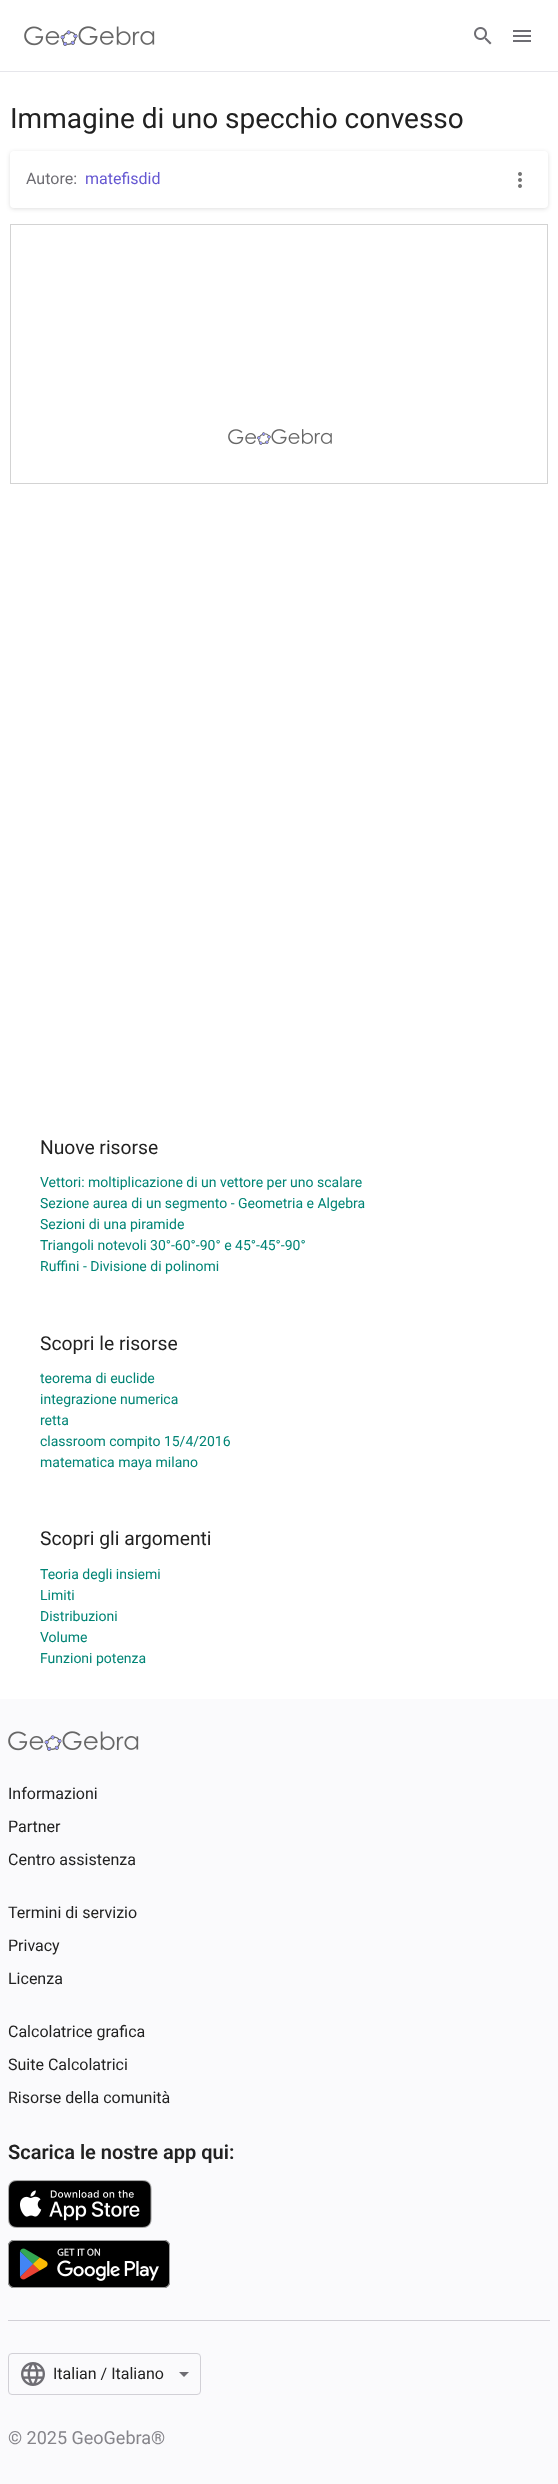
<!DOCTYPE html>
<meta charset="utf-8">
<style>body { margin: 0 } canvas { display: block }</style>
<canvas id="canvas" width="558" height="2484"></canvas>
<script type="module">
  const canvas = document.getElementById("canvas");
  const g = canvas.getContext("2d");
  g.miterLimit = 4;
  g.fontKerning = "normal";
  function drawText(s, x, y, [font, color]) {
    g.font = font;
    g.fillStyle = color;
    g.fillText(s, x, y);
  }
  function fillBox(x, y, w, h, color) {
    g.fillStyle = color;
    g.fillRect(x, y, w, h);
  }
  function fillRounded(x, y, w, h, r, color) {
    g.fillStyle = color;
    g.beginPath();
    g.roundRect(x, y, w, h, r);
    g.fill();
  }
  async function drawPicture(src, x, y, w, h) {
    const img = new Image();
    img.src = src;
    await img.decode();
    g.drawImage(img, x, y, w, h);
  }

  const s1 = ["28px Roboto", "#212121"];
  const s2 = ["16px Roboto", "#6E6D73"];
  const s3 = ["16px Roboto", "#6557D2"];
  const s4 = ["19.25px Roboto", "#212121"];
  const s5 = ["14px Roboto", "#008475"];
  const s6 = ["16px Roboto", "#212121"];
  const s7 = ["600 20px Roboto", "#212121"];
  const s8 = ["18px Roboto", "#85848A"];

  fillBox(0, 0, 558, 2484, "#FFFFFF");
  fillBox(0, 71, 558, 1, "#E6E6EB");
  await drawPicture("pic1.png", 24, 26, 131, 20);
  await drawPicture("pic2.png", 474, 27, 18, 18);
  await drawPicture("pic3.png", 513, 30, 18, 12);
  drawText("Immagine di uno specchio convesso", 10, 128, s1);
  g.fillStyle = "rgba(28, 28, 31, 0.14)";
  g.filter = "blur(2px)";
  g.beginPath();
  g.roundRect(10, 152, 538, 57, 4);
  g.fill();
  g.filter = "none";
  fillRounded(10, 151, 538, 57, 4, "#FFFFFF");
  drawText("Autore:", 26, 184, s2);
  drawText("matefisdid", 85, 184, s3);
  await drawPicture("pic4.png", 518, 172, 4, 16);
  await drawPicture("pic5.png", 228, 429, 104, 16);
  g.strokeStyle = "#D3D3D3";
  g.strokeRect(10.5, 224.5, 537, 259);
  drawText("Nuove risorse", 40, 1154, s4);
  drawText("Vettori: moltiplicazione di un vettore per uno scalare", 40, 1187, s5);
  drawText("Sezione aurea di un segmento - Geometria e Algebra", 40, 1208, s5);
  drawText("Sezioni di una piramide", 40, 1229, s5);
  drawText("Triangoli notevoli 30°-60°-90° e 45°-45°-90°", 40, 1250, s5);
  drawText("Ruffini - Divisione di polinomi", 40, 1271, s5);
  drawText("Scopri le risorse", 40, 1350, s4);
  drawText("teorema di euclide", 40, 1383, s5);
  drawText("integrazione numerica", 40, 1404, s5);
  drawText("retta", 40, 1425, s5);
  drawText("classroom compito 15/4/2016", 40, 1446, s5);
  drawText("matematica maya milano", 40, 1467, s5);
  drawText("Scopri gli argomenti", 40, 1545, s4);
  drawText("Teoria degli insiemi", 40, 1579, s5);
  drawText("Limiti", 40, 1600, s5);
  drawText("Distribuzioni", 40, 1621, s5);
  drawText("Volume", 40, 1642, s5);
  drawText("Funzioni potenza", 40, 1663, s5);
  fillBox(0, 1699, 558, 785, "#FAFAFC");
  await drawPicture("pic6.png", 8, 1731, 131, 20);
  drawText("Informazioni", 8, 1799, s6);
  drawText("Partner", 8, 1832, s6);
  drawText("Centro assistenza", 8, 1865, s6);
  drawText("Termini di servizio", 8, 1918, s6);
  drawText("Privacy", 8, 1951, s6);
  drawText("Licenza", 8, 1984, s6);
  drawText("Calcolatrice grafica", 8, 2037, s6);
  drawText("Suite Calcolatrici", 8, 2070, s6);
  drawText("Risorse della comunità", 8, 2103, s6);
  drawText("Scarica le nostre app qui:", 8, 2159, s7);
  await drawPicture("pic7.png", 8, 2180, 144, 48);
  await drawPicture("pic8.png", 8, 2240, 162, 48);
  fillBox(8, 2320, 542, 1, "#D1D0D6");
  g.beginPath();
  g.roundRect(8.5, 2353.5, 192, 41, 3.5);
  g.strokeStyle = "#D1D0D6";
  g.stroke();
  await drawPicture("pic9.png", 21, 2362, 24, 24);
  drawText("Italian / Italiano", 53, 2379, s6);
  g.fillStyle = "#6E6D73";
  g.beginPath();
  g.moveTo(179, 2372);
  g.lineTo(184, 2377);
  g.lineTo(189, 2372);
  g.closePath();
  g.fill();
  drawText("© 2025 GeoGebra®", 8, 2444, s8);
</script>
